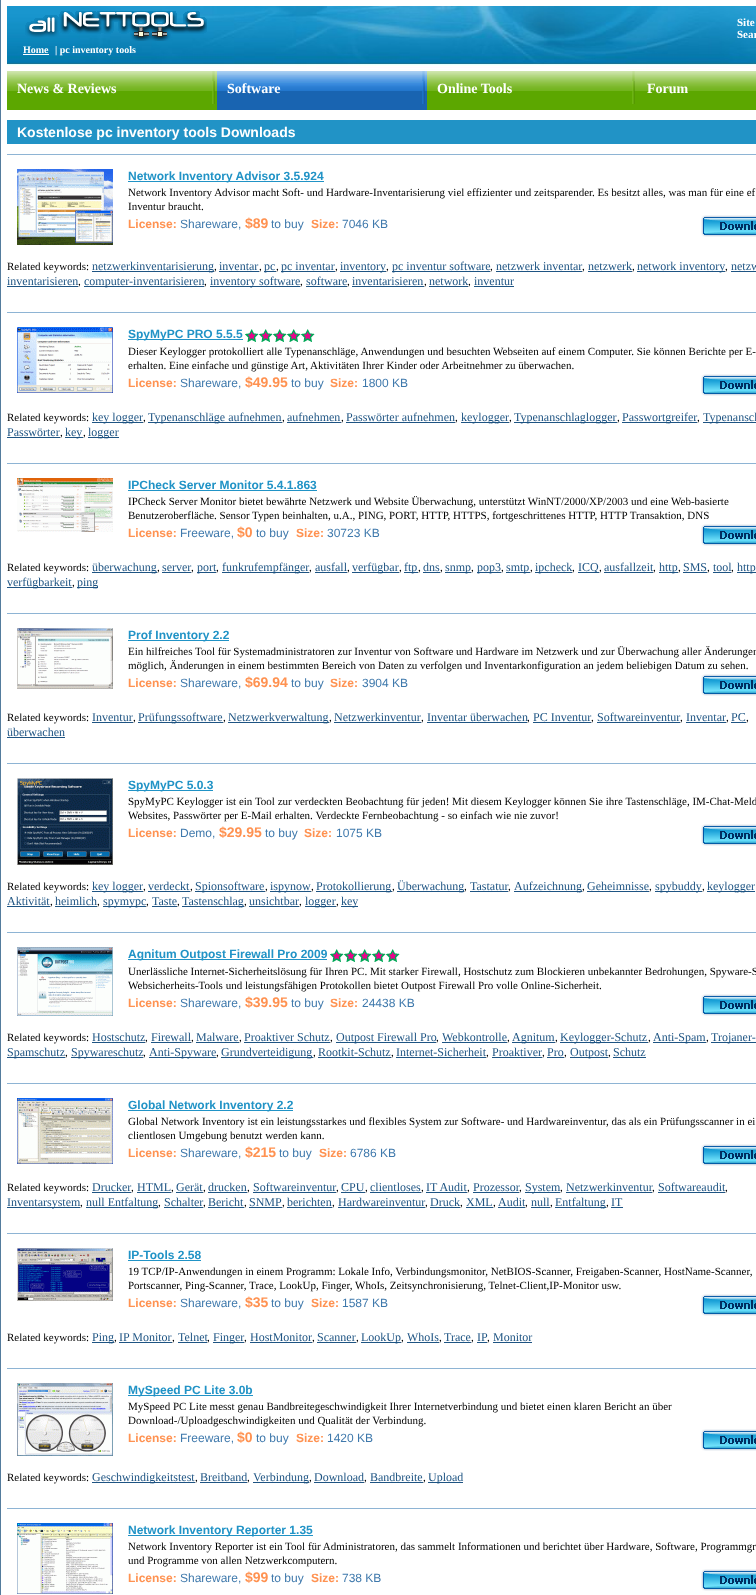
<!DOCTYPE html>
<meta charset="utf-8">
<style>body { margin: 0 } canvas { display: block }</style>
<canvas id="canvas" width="756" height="1595"></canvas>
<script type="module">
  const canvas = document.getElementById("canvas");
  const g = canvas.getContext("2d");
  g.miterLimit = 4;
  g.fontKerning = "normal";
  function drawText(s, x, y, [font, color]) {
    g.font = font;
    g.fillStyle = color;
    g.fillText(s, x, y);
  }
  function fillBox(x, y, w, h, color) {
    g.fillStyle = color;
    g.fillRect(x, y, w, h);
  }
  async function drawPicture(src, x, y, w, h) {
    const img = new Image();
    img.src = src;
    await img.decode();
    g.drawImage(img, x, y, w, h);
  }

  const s1 = ["bold 11px Liberation Serif", "#FFFFFF"];
  const s2 = ["bold 10px Liberation Serif", "#FFFFFF"];
  const s3 = ["bold 14px Liberation Serif", "#FFFFFF"];
  const s4 = ["bold 14px Liberation Sans", "#FFFFFF"];
  const s5 = ["bold 12px Liberation Sans", "#2193C6"];
  const s6 = ["11px Liberation Serif", "#000000"];
  const s7 = ["bold 12px Liberation Sans", "#FF9251"];
  const s8 = ["12px Liberation Sans", "#3F79AC"];
  const s9 = ["bold 14px Liberation Sans", "#FF9251"];
  const s10 = ["12px Liberation Serif", "#1E5483"];

  fillBox(0, 0, 756, 1595, "#FFFFFF");
  fillBox(0, 0, 1, 1595, "#547C9D");
  await drawPicture("pic1.png", 7, 6, 749, 64);
  await drawPicture("pic2.png", 25, 11, 182, 30);
  drawText("Site", 737, 26, s1);
  drawText("Sear", 737, 38, s1);
  drawText("Home", 23, 53, s2);
  fillBox(23, 54, 26, 1, "#FFFFFF");
  drawText("| pc inventory tools", 55, 53, s2);
  await drawPicture("pic3.png", 7, 71, 210, 39);
  drawText("News & Reviews", 17, 93, s3);
  await drawPicture("pic4.png", 217, 71, 210, 39);
  drawText("Software", 227, 93, s3);
  await drawPicture("pic3.png", 427, 71, 210, 39);
  drawText("Online Tools", 437, 93, s3);
  await drawPicture("pic5.png", 637, 71, 119, 39);
  drawText("Forum", 647, 93, s3);
  fillBox(7, 120, 749, 24, "#2193C6");
  drawText("Kostenlose pc inventory tools Downloads", 17, 137, s4);
  fillBox(7, 154, 749, 1, "#8EB4D4");
  await drawPicture("pic6.png", 17, 169, 96, 76);
  fillBox(128, 181, 196, 1, "#2193C6");
  drawText("Network Inventory Advisor 3.5.924", 128, 180, s5);
  drawText("Network Inventory Advisor macht Soft- und Hardware-Inventarisierung viel effizienter und zeitsparender. Es besitzt alles, was man für eine ef", 128, 196, s6);
  drawText("Inventur braucht.", 128, 210, s6);
  drawText("License:", 128, 228, s7);
  drawText("Shareware,", 180, 228, s8);
  drawText("$89", 245, 228, s9);
  drawText("to buy", 271, 228, s8);
  drawText("Size:", 311, 228, s7);
  drawText("7046 KB", 342, 228, s8);
  await drawPicture("pic7.png", 701, 215, 55, 22);
  drawText("Related keywords:", 7, 270, s6);
  fillBox(92, 271, 122, 1, "#1E5483");
  drawText("netzwerkinventarisierung", 92, 270, s10);
  drawText(",", 214, 270, s6);
  drawText("inventar", 219, 270, s10);
  fillBox(219, 271, 40, 1, "#1E5483");
  drawText(",", 259, 270, s6);
  fillBox(264, 271, 12, 1, "#1E5483");
  drawText("pc", 264, 270, s10);
  drawText(",", 276, 270, s6);
  fillBox(281, 271, 54, 1, "#1E5483");
  drawText("pc inventar", 281, 270, s10);
  drawText(",", 335, 270, s6);
  fillBox(340, 271, 46, 1, "#1E5483");
  drawText("inventory", 340, 270, s10);
  drawText(",", 386, 270, s6);
  fillBox(392, 271, 98, 1, "#1E5483");
  drawText("pc inventur software", 392, 270, s10);
  drawText(",", 490, 270, s6);
  drawText("netzwerk inventar", 496, 270, s10);
  fillBox(496, 271, 86, 1, "#1E5483");
  drawText(",", 582, 270, s6);
  drawText("netzwerk", 588, 270, s10);
  fillBox(588, 271, 44, 1, "#1E5483");
  drawText(",", 632, 270, s6);
  fillBox(637, 271, 88, 1, "#1E5483");
  drawText("network inventory", 637, 270, s10);
  drawText(",", 725, 270, s6);
  drawText("netzw", 731, 270, s10);
  fillBox(731, 271, 25, 1, "#1E5483");
  drawText("inventarisieren", 7, 285, s10);
  fillBox(7, 286, 71, 1, "#1E5483");
  drawText(",", 78, 285, s6);
  fillBox(84, 286, 120, 1, "#1E5483");
  drawText("computer-inventarisieren", 84, 285, s10);
  drawText(",", 204, 285, s6);
  fillBox(210, 286, 90, 1, "#1E5483");
  drawText("inventory software", 210, 285, s10);
  drawText(",", 300, 285, s6);
  drawText("software", 306, 285, s10);
  fillBox(306, 286, 41, 1, "#1E5483");
  drawText(",", 347, 285, s6);
  drawText("inventarisieren", 352, 285, s10);
  fillBox(352, 286, 72, 1, "#1E5483");
  drawText(",", 424, 285, s6);
  drawText("network", 429, 285, s10);
  fillBox(429, 286, 39, 1, "#1E5483");
  drawText(",", 468, 285, s6);
  drawText("inventur", 474, 285, s10);
  fillBox(474, 286, 40, 1, "#1E5483");
  fillBox(7, 312, 749, 1, "#8EB4D4");
  await drawPicture("pic8.png", 17, 327, 96, 66);
  fillBox(128, 339, 115, 1, "#2193C6");
  drawText("SpyMyPC PRO 5.5.5", 128, 338, s5);
  await drawPicture("pic9.png", 245, 329, 70, 13);
  drawText("Dieser Keylogger protokolliert alle Typenanschläge, Anwendungen und besuchten Webseiten auf einem Computer. Sie können Berichte per E-", 128, 355, s6);
  drawText("erhalten. Eine einfache und günstige Art, Aktivitäten Ihrer Kinder oder Arbeitnehmer zu überwachen.", 128, 369, s6);
  drawText("License:", 128, 387, s7);
  drawText("Shareware,", 180, 387, s8);
  drawText("$49.95", 245, 387, s9);
  drawText("to buy", 291, 387, s8);
  drawText("Size:", 330, 387, s7);
  drawText("1800 KB", 362, 387, s8);
  await drawPicture("pic7.png", 701, 374, 55, 22);
  drawText("Related keywords:", 7, 421, s6);
  fillBox(92, 422, 51, 1, "#1E5483");
  drawText("key logger", 92, 421, s10);
  drawText(",", 143, 421, s6);
  fillBox(148, 422, 134, 1, "#1E5483");
  drawText("Typenanschläge aufnehmen", 148, 421, s10);
  drawText(",", 282, 421, s6);
  drawText("aufnehmen", 287, 421, s10);
  fillBox(287, 422, 54, 1, "#1E5483");
  drawText(",", 341, 421, s6);
  drawText("Passwörter aufnehmen", 346, 421, s10);
  fillBox(346, 422, 109, 1, "#1E5483");
  drawText(",", 455, 421, s6);
  fillBox(461, 422, 48, 1, "#1E5483");
  drawText("keylogger", 461, 421, s10);
  drawText(",", 509, 421, s6);
  fillBox(514, 422, 103, 1, "#1E5483");
  drawText("Typenanschlaglogger", 514, 421, s10);
  drawText(",", 617, 421, s6);
  fillBox(622, 422, 75, 1, "#1E5483");
  drawText("Passwortgreifer", 622, 421, s10);
  drawText(",", 697, 421, s6);
  fillBox(703, 422, 53, 1, "#1E5483");
  drawText("Typenansch", 703, 421, s10);
  drawText("Passwörter", 7, 436, s10);
  fillBox(7, 437, 53, 1, "#1E5483");
  drawText(",", 60, 436, s6);
  fillBox(65, 437, 18, 1, "#1E5483");
  drawText("key", 65, 436, s10);
  drawText(",", 83, 436, s6);
  fillBox(88, 437, 31, 1, "#1E5483");
  drawText("logger", 88, 436, s10);
  fillBox(7, 463, 749, 1, "#8EB4D4");
  await drawPicture("pic10.png", 17, 478, 96, 54);
  drawText("IPCheck Server Monitor 5.4.1.863", 128, 489, s5);
  fillBox(128, 490, 189, 1, "#2193C6");
  drawText("IPCheck Server Monitor bietet bewährte Netzwerk und Website Überwachung, unterstützt WinNT/2000/XP/2003 und eine Web-basierte", 128, 505, s6);
  drawText("Benutzeroberfläche. Sensor Typen beinhalten, u.A., PING, PORT, HTTP, HTTPS, fortgeschrittenes HTTP, HTTP Transaktion, DNS", 128, 519, s6);
  drawText("License:", 128, 537, s7);
  drawText("Freeware,", 180, 537, s8);
  drawText("$0", 237, 537, s9);
  drawText("to buy", 256, 537, s8);
  drawText("Size:", 296, 537, s7);
  drawText("30723 KB", 327, 537, s8);
  await drawPicture("pic7.png", 701, 524, 55, 22);
  drawText("Related keywords:", 7, 571, s6);
  fillBox(92, 572, 65, 1, "#1E5483");
  drawText("überwachung", 92, 571, s10);
  drawText(",", 157, 571, s6);
  drawText("server", 162, 571, s10);
  fillBox(162, 572, 29, 1, "#1E5483");
  drawText(",", 191, 571, s6);
  fillBox(197, 572, 19, 1, "#1E5483");
  drawText("port", 197, 571, s10);
  drawText(",", 216, 571, s6);
  fillBox(222, 572, 87, 1, "#1E5483");
  drawText("funkrufempfänger", 222, 571, s10);
  drawText(",", 309, 571, s6);
  drawText("ausfall", 315, 571, s10);
  fillBox(315, 572, 32, 1, "#1E5483");
  drawText(",", 347, 571, s6);
  fillBox(352, 572, 47, 1, "#1E5483");
  drawText("verfügbar", 352, 571, s10);
  drawText(",", 399, 571, s6);
  fillBox(404, 572, 14, 1, "#1E5483");
  drawText("ftp", 404, 571, s10);
  drawText(",", 418, 571, s6);
  drawText("dns", 423, 571, s10);
  fillBox(423, 572, 17, 1, "#1E5483");
  drawText(",", 440, 571, s6);
  fillBox(445, 572, 26, 1, "#1E5483");
  drawText("snmp", 445, 571, s10);
  drawText(",", 471, 571, s6);
  fillBox(477, 572, 24, 1, "#1E5483");
  drawText("pop3", 477, 571, s10);
  drawText(",", 501, 571, s6);
  fillBox(506, 572, 24, 1, "#1E5483");
  drawText("smtp", 506, 571, s10);
  drawText(",", 530, 571, s6);
  fillBox(535, 572, 37, 1, "#1E5483");
  drawText("ipcheck", 535, 571, s10);
  drawText(",", 572, 571, s6);
  fillBox(578, 572, 21, 1, "#1E5483");
  drawText("ICQ", 578, 571, s10);
  drawText(",", 599, 571, s6);
  drawText("ausfallzeit", 604, 571, s10);
  fillBox(604, 572, 49, 1, "#1E5483");
  drawText(",", 653, 571, s6);
  fillBox(659, 572, 19, 1, "#1E5483");
  drawText("http", 659, 571, s10);
  drawText(",", 678, 571, s6);
  drawText("SMS", 683, 571, s10);
  fillBox(683, 572, 24, 1, "#1E5483");
  drawText(",", 707, 571, s6);
  drawText("tool", 713, 571, s10);
  fillBox(713, 572, 18, 1, "#1E5483");
  drawText(",", 731, 571, s6);
  fillBox(737, 572, 19, 1, "#1E5483");
  drawText("http", 737, 571, s10);
  fillBox(7, 587, 65, 1, "#1E5483");
  drawText("verfügbarkeit", 7, 586, s10);
  drawText(",", 72, 586, s6);
  fillBox(77, 587, 21, 1, "#1E5483");
  drawText("ping", 77, 586, s10);
  fillBox(7, 613, 749, 1, "#8EB4D4");
  await drawPicture("pic11.png", 17, 628, 96, 61);
  fillBox(128, 640, 101, 1, "#2193C6");
  drawText("Prof Inventory 2.2", 128, 639, s5);
  drawText("Ein hilfreiches Tool für Systemadministratoren zur Inventur von Software und Hardware im Netzwerk und zur Überwachung aller Änderungen", 128, 655, s6);
  drawText("möglich, Änderungen in einem bestimmten Bereich von Daten zu verfolgen und Inventarkonfiguration an jedem beliebigen Datum zu sehen.", 128, 669, s6);
  drawText("License:", 128, 687, s7);
  drawText("Shareware,", 180, 687, s8);
  drawText("$69.94", 245, 687, s9);
  drawText("to buy", 291, 687, s8);
  drawText("Size:", 330, 687, s7);
  drawText("3904 KB", 362, 687, s8);
  await drawPicture("pic7.png", 701, 674, 55, 22);
  drawText("Related keywords:", 7, 721, s6);
  drawText("Inventur", 92, 721, s10);
  fillBox(92, 722, 41, 1, "#1E5483");
  drawText(",", 133, 721, s6);
  fillBox(138, 722, 85, 1, "#1E5483");
  drawText("Prüfungssoftware", 138, 721, s10);
  drawText(",", 223, 721, s6);
  fillBox(228, 722, 101, 1, "#1E5483");
  drawText("Netzwerkverwaltung", 228, 721, s10);
  drawText(",", 329, 721, s6);
  drawText("Netzwerkinventur", 334, 721, s10);
  fillBox(334, 722, 87, 1, "#1E5483");
  drawText(",", 421, 721, s6);
  drawText("Inventar überwachen", 427, 721, s10);
  fillBox(427, 722, 100, 1, "#1E5483");
  drawText(",", 527, 721, s6);
  drawText("PC Inventur", 533, 721, s10);
  fillBox(533, 722, 58, 1, "#1E5483");
  drawText(",", 591, 721, s6);
  drawText("Softwareinventur", 597, 721, s10);
  fillBox(597, 722, 83, 1, "#1E5483");
  drawText(",", 680, 721, s6);
  drawText("Inventar", 686, 721, s10);
  fillBox(686, 722, 40, 1, "#1E5483");
  drawText(",", 726, 721, s6);
  drawText("PC", 731, 721, s10);
  fillBox(731, 722, 15, 1, "#1E5483");
  drawText(",", 746, 721, s6);
  drawText("überwachen", 7, 736, s10);
  fillBox(7, 737, 58, 1, "#1E5483");
  fillBox(7, 763, 749, 1, "#8EB4D4");
  await drawPicture("pic12.png", 17, 778, 96, 87);
  fillBox(128, 790, 85, 1, "#2193C6");
  drawText("SpyMyPC 5.0.3", 128, 789, s5);
  drawText("SpyMyPC Keylogger ist ein Tool zur verdeckten Beobachtung für jeden! Mit diesem Keylogger können Sie ihre Tastenschläge, IM-Chat-Meld", 128, 805, s6);
  drawText("Websites, Passwörter per E-Mail erhalten. Verdeckte Fernbeobachtung - so einfach wie nie zuvor!", 128, 819, s6);
  drawText("License:", 128, 837, s7);
  drawText("Demo,", 180, 837, s8);
  drawText("$29.95", 219, 837, s9);
  drawText("to buy", 265, 837, s8);
  drawText("Size:", 304, 837, s7);
  drawText("1075 KB", 336, 837, s8);
  await drawPicture("pic7.png", 701, 824, 55, 22);
  drawText("Related keywords:", 7, 890, s6);
  fillBox(92, 891, 51, 1, "#1E5483");
  drawText("key logger", 92, 890, s10);
  drawText(",", 143, 890, s6);
  drawText("verdeckt", 148, 890, s10);
  fillBox(148, 891, 42, 1, "#1E5483");
  drawText(",", 190, 890, s6);
  fillBox(195, 891, 70, 1, "#1E5483");
  drawText("Spionsoftware", 195, 890, s10);
  drawText(",", 265, 890, s6);
  fillBox(270, 891, 41, 1, "#1E5483");
  drawText("ispynow", 270, 890, s10);
  drawText(",", 311, 890, s6);
  fillBox(316, 891, 76, 1, "#1E5483");
  drawText("Protokollierung", 316, 890, s10);
  drawText(",", 392, 890, s6);
  fillBox(397, 891, 67, 1, "#1E5483");
  drawText("Überwachung", 397, 890, s10);
  drawText(",", 464, 890, s6);
  drawText("Tastatur", 470, 890, s10);
  fillBox(470, 891, 38, 1, "#1E5483");
  drawText(",", 508, 890, s6);
  fillBox(514, 891, 68, 1, "#1E5483");
  drawText("Aufzeichnung", 514, 890, s10);
  drawText(",", 582, 890, s6);
  drawText("Geheimnisse", 587, 890, s10);
  fillBox(587, 891, 62, 1, "#1E5483");
  drawText(",", 649, 890, s6);
  fillBox(655, 891, 47, 1, "#1E5483");
  drawText("spybuddy", 655, 890, s10);
  drawText(",", 702, 890, s6);
  fillBox(707, 891, 48, 1, "#1E5483");
  drawText("keylogger", 707, 890, s10);
  drawText("Aktivität", 7, 905, s10);
  fillBox(7, 906, 43, 1, "#1E5483");
  drawText(",", 50, 905, s6);
  drawText("heimlich", 55, 905, s10);
  fillBox(55, 906, 42, 1, "#1E5483");
  drawText(",", 97, 905, s6);
  fillBox(103, 906, 43, 1, "#1E5483");
  drawText("spymypc", 103, 905, s10);
  drawText(",", 146, 905, s6);
  drawText("Taste", 152, 905, s10);
  fillBox(152, 906, 25, 1, "#1E5483");
  drawText(",", 177, 905, s6);
  fillBox(182, 906, 62, 1, "#1E5483");
  drawText("Tastenschlag", 182, 905, s10);
  drawText(",", 244, 905, s6);
  drawText("unsichtbar", 249, 905, s10);
  fillBox(249, 906, 50, 1, "#1E5483");
  drawText(",", 299, 905, s6);
  fillBox(305, 906, 31, 1, "#1E5483");
  drawText("logger", 305, 905, s10);
  drawText(",", 336, 905, s6);
  fillBox(341, 906, 17, 1, "#1E5483");
  drawText("key", 341, 905, s10);
  fillBox(7, 932, 749, 1, "#8EB4D4");
  await drawPicture("pic13.png", 17, 947, 96, 69);
  fillBox(128, 959, 199, 1, "#2193C6");
  drawText("Agnitum Outpost Firewall Pro 2009", 128, 958, s5);
  await drawPicture("pic9.png", 330, 949, 70, 13);
  drawText("Unerlässliche Internet-Sicherheitslösung für Ihren PC. Mit starker Firewall, Hostschutz zum Blockieren unbekannter Bedrohungen, Spyware-S", 128, 975, s6);
  drawText("Websicherheits-Tools und leistungsfähigen Protokollen bietet Outpost Firewall Pro volle Online-Sicherheit.", 128, 989, s6);
  drawText("License:", 128, 1007, s7);
  drawText("Shareware,", 180, 1007, s8);
  drawText("$39.95", 245, 1007, s9);
  drawText("to buy", 291, 1007, s8);
  drawText("Size:", 330, 1007, s7);
  drawText("24438 KB", 362, 1007, s8);
  await drawPicture("pic7.png", 701, 994, 55, 22);
  drawText("Related keywords:", 7, 1041, s6);
  drawText("Hostschutz", 92, 1041, s10);
  fillBox(92, 1042, 53, 1, "#1E5483");
  drawText(",", 145, 1041, s6);
  drawText("Firewall", 151, 1041, s10);
  fillBox(151, 1042, 40, 1, "#1E5483");
  drawText(",", 191, 1041, s6);
  drawText("Malware", 196, 1041, s10);
  fillBox(196, 1042, 43, 1, "#1E5483");
  drawText(",", 239, 1041, s6);
  drawText("Proaktiver Schutz", 244, 1041, s10);
  fillBox(244, 1042, 86, 1, "#1E5483");
  drawText(",", 330, 1041, s6);
  fillBox(336, 1042, 100, 1, "#1E5483");
  drawText("Outpost Firewall Pro", 336, 1041, s10);
  drawText(",", 436, 1041, s6);
  drawText("Webkontrolle", 442, 1041, s10);
  fillBox(442, 1042, 65, 1, "#1E5483");
  drawText(",", 507, 1041, s6);
  fillBox(512, 1042, 43, 1, "#1E5483");
  drawText("Agnitum", 512, 1041, s10);
  drawText(",", 555, 1041, s6);
  fillBox(560, 1042, 88, 1, "#1E5483");
  drawText("Keylogger-Schutz", 560, 1041, s10);
  drawText(",", 648, 1041, s6);
  fillBox(653, 1042, 53, 1, "#1E5483");
  drawText("Anti-Spam", 653, 1041, s10);
  drawText(",", 706, 1041, s6);
  fillBox(711, 1042, 45, 1, "#1E5483");
  drawText("Trojaner-", 711, 1041, s10);
  fillBox(7, 1057, 58, 1, "#1E5483");
  drawText("Spamschutz", 7, 1056, s10);
  drawText(",", 65, 1056, s6);
  fillBox(71, 1057, 72, 1, "#1E5483");
  drawText("Spywareschutz", 71, 1056, s10);
  drawText(",", 143, 1056, s6);
  fillBox(149, 1057, 67, 1, "#1E5483");
  drawText("Anti-Spyware", 149, 1056, s10);
  drawText(",", 216, 1056, s6);
  fillBox(221, 1057, 92, 1, "#1E5483");
  drawText("Grundverteidigung", 221, 1056, s10);
  drawText(",", 313, 1056, s6);
  drawText("Rootkit-Schutz", 318, 1056, s10);
  fillBox(318, 1057, 73, 1, "#1E5483");
  drawText(",", 391, 1056, s6);
  drawText("Internet-Sicherheit", 396, 1056, s10);
  fillBox(396, 1057, 90, 1, "#1E5483");
  drawText(",", 486, 1056, s6);
  drawText("Proaktiver", 492, 1056, s10);
  fillBox(492, 1057, 50, 1, "#1E5483");
  drawText(",", 542, 1056, s6);
  drawText("Pro", 547, 1056, s10);
  fillBox(547, 1057, 17, 1, "#1E5483");
  drawText(",", 564, 1056, s6);
  fillBox(570, 1057, 38, 1, "#1E5483");
  drawText("Outpost", 570, 1056, s10);
  drawText(",", 608, 1056, s6);
  drawText("Schutz", 613, 1056, s10);
  fillBox(613, 1057, 33, 1, "#1E5483");
  fillBox(7, 1083, 749, 1, "#8EB4D4");
  await drawPicture("pic14.png", 17, 1098, 96, 66);
  fillBox(128, 1110, 165, 1, "#2193C6");
  drawText("Global Network Inventory 2.2", 128, 1109, s5);
  drawText("Global Network Inventory ist ein leistungsstarkes und flexibles System zur Software- und Hardwareinventur, das als ein Prüfungsscanner in ei", 128, 1125, s6);
  drawText("clientlosen Umgebung benutzt werden kann.", 128, 1139, s6);
  drawText("License:", 128, 1157, s7);
  drawText("Shareware,", 180, 1157, s8);
  drawText("$215", 245, 1157, s9);
  drawText("to buy", 279, 1157, s8);
  drawText("Size:", 319, 1157, s7);
  drawText("6786 KB", 350, 1157, s8);
  await drawPicture("pic7.png", 701, 1144, 55, 22);
  drawText("Related keywords:", 7, 1191, s6);
  drawText("Drucker", 92, 1191, s10);
  fillBox(92, 1192, 39, 1, "#1E5483");
  drawText(",", 131, 1191, s6);
  drawText("HTML", 137, 1191, s10);
  fillBox(137, 1192, 34, 1, "#1E5483");
  drawText(",", 171, 1191, s6);
  drawText("Gerät", 176, 1191, s10);
  fillBox(176, 1192, 27, 1, "#1E5483");
  drawText(",", 203, 1191, s6);
  drawText("drucken", 208, 1191, s10);
  fillBox(208, 1192, 39, 1, "#1E5483");
  drawText(",", 247, 1191, s6);
  drawText("Softwareinventur", 253, 1191, s10);
  fillBox(253, 1192, 83, 1, "#1E5483");
  drawText(",", 336, 1191, s6);
  drawText("CPU", 341, 1191, s10);
  fillBox(341, 1192, 24, 1, "#1E5483");
  drawText(",", 365, 1191, s6);
  drawText("clientloses", 370, 1191, s10);
  fillBox(370, 1192, 51, 1, "#1E5483");
  drawText(",", 421, 1191, s6);
  drawText("IT Audit", 426, 1191, s10);
  fillBox(426, 1192, 41, 1, "#1E5483");
  drawText(",", 467, 1191, s6);
  drawText("Prozessor", 473, 1191, s10);
  fillBox(473, 1192, 46, 1, "#1E5483");
  drawText(",", 519, 1191, s6);
  fillBox(525, 1192, 35, 1, "#1E5483");
  drawText("System", 525, 1191, s10);
  drawText(",", 560, 1191, s6);
  drawText("Netzwerkinventur", 566, 1191, s10);
  fillBox(566, 1192, 86, 1, "#1E5483");
  drawText(",", 652, 1191, s6);
  drawText("Softwareaudit", 658, 1191, s10);
  fillBox(658, 1192, 67, 1, "#1E5483");
  drawText(",", 725, 1191, s6);
  fillBox(7, 1207, 73, 1, "#1E5483");
  drawText("Inventarsystem", 7, 1206, s10);
  drawText(",", 80, 1206, s6);
  fillBox(86, 1207, 72, 1, "#1E5483");
  drawText("null Entfaltung", 86, 1206, s10);
  drawText(",", 158, 1206, s6);
  drawText("Schalter", 164, 1206, s10);
  fillBox(164, 1207, 39, 1, "#1E5483");
  drawText(",", 203, 1206, s6);
  drawText("Bericht", 208, 1206, s10);
  fillBox(208, 1207, 36, 1, "#1E5483");
  drawText(",", 244, 1206, s6);
  drawText("SNMP", 249, 1206, s10);
  fillBox(249, 1207, 33, 1, "#1E5483");
  drawText(",", 282, 1206, s6);
  drawText("berichten", 287, 1206, s10);
  fillBox(287, 1207, 45, 1, "#1E5483");
  drawText(",", 332, 1206, s6);
  drawText("Hardwareinventur", 338, 1206, s10);
  fillBox(338, 1207, 87, 1, "#1E5483");
  drawText(",", 425, 1206, s6);
  drawText("Druck", 430, 1206, s10);
  fillBox(430, 1207, 30, 1, "#1E5483");
  drawText(",", 460, 1206, s6);
  drawText("XML", 466, 1206, s10);
  fillBox(466, 1207, 27, 1, "#1E5483");
  drawText(",", 493, 1206, s6);
  drawText("Audit", 498, 1206, s10);
  fillBox(498, 1207, 27, 1, "#1E5483");
  drawText(",", 525, 1206, s6);
  drawText("null", 531, 1206, s10);
  fillBox(531, 1207, 19, 1, "#1E5483");
  drawText(",", 550, 1206, s6);
  fillBox(555, 1207, 51, 1, "#1E5483");
  drawText("Entfaltung", 555, 1206, s10);
  drawText(",", 606, 1206, s6);
  drawText("IT", 611, 1206, s10);
  fillBox(611, 1207, 12, 1, "#1E5483");
  fillBox(7, 1233, 749, 1, "#8EB4D4");
  await drawPicture("pic15.png", 17, 1248, 96, 53);
  drawText("IP-Tools 2.58", 128, 1259, s5);
  fillBox(128, 1260, 73, 1, "#2193C6");
  drawText("19 TCP/IP-Anwendungen in einem Programm: Lokale Info, Verbindungsmonitor, NetBIOS-Scanner, Freigaben-Scanner, HostName-Scanner,", 128, 1275, s6);
  drawText("Portscanner, Ping-Scanner, Trace, LookUp, Finger, WhoIs, Zeitsynchronisierung, Telnet-Client,IP-Monitor usw.", 128, 1289, s6);
  drawText("License:", 128, 1307, s7);
  drawText("Shareware,", 180, 1307, s8);
  drawText("$35", 245, 1307, s9);
  drawText("to buy", 271, 1307, s8);
  drawText("Size:", 311, 1307, s7);
  drawText("1587 KB", 342, 1307, s8);
  await drawPicture("pic7.png", 701, 1294, 55, 22);
  drawText("Related keywords:", 7, 1341, s6);
  fillBox(92, 1342, 22, 1, "#1E5483");
  drawText("Ping", 92, 1341, s10);
  drawText(",", 114, 1341, s6);
  drawText("IP Monitor", 119, 1341, s10);
  fillBox(119, 1342, 53, 1, "#1E5483");
  drawText(",", 172, 1341, s6);
  drawText("Telnet", 178, 1341, s10);
  fillBox(178, 1342, 29, 1, "#1E5483");
  drawText(",", 207, 1341, s6);
  fillBox(213, 1342, 31, 1, "#1E5483");
  drawText("Finger", 213, 1341, s10);
  drawText(",", 244, 1341, s6);
  drawText("HostMonitor", 250, 1341, s10);
  fillBox(250, 1342, 62, 1, "#1E5483");
  drawText(",", 312, 1341, s6);
  drawText("Scanner", 317, 1341, s10);
  fillBox(317, 1342, 39, 1, "#1E5483");
  drawText(",", 356, 1341, s6);
  fillBox(361, 1342, 40, 1, "#1E5483");
  drawText("LookUp", 361, 1341, s10);
  drawText(",", 401, 1341, s6);
  drawText("WhoIs", 407, 1341, s10);
  fillBox(407, 1342, 32, 1, "#1E5483");
  drawText(",", 439, 1341, s6);
  drawText("Trace", 444, 1341, s10);
  fillBox(444, 1342, 27, 1, "#1E5483");
  drawText(",", 471, 1341, s6);
  drawText("IP", 477, 1341, s10);
  fillBox(477, 1342, 10, 1, "#1E5483");
  drawText(",", 487, 1341, s6);
  drawText("Monitor", 493, 1341, s10);
  fillBox(493, 1342, 39, 1, "#1E5483");
  fillBox(7, 1368, 749, 1, "#8EB4D4");
  await drawPicture("pic16.png", 17, 1383, 96, 73);
  fillBox(128, 1395, 125, 1, "#2193C6");
  drawText("MySpeed PC Lite 3.0b", 128, 1394, s5);
  drawText("MySpeed PC Lite messt genau Bandbreitegeschwindigkeit Ihrer Internetverbindung und bietet einen klaren Bericht an über", 128, 1410, s6);
  drawText("Download-/Uploadgeschwindigkeiten und Qualität der Verbindung.", 128, 1424, s6);
  drawText("License:", 128, 1442, s7);
  drawText("Freeware,", 180, 1442, s8);
  drawText("$0", 237, 1442, s9);
  drawText("to buy", 256, 1442, s8);
  drawText("Size:", 296, 1442, s7);
  drawText("1420 KB", 327, 1442, s8);
  await drawPicture("pic7.png", 701, 1429, 55, 22);
  drawText("Related keywords:", 7, 1481, s6);
  fillBox(92, 1482, 103, 1, "#1E5483");
  drawText("Geschwindigkeitstest", 92, 1481, s10);
  drawText(",", 195, 1481, s6);
  drawText("Breitband", 200, 1481, s10);
  fillBox(200, 1482, 47, 1, "#1E5483");
  drawText(",", 247, 1481, s6);
  fillBox(253, 1482, 56, 1, "#1E5483");
  drawText("Verbindung", 253, 1481, s10);
  drawText(",", 309, 1481, s6);
  drawText("Download", 314, 1481, s10);
  fillBox(314, 1482, 50, 1, "#1E5483");
  drawText(",", 364, 1481, s6);
  drawText("Bandbreite", 370, 1481, s10);
  fillBox(370, 1482, 53, 1, "#1E5483");
  drawText(",", 423, 1481, s6);
  fillBox(428, 1482, 35, 1, "#1E5483");
  drawText("Upload", 428, 1481, s10);
  fillBox(7, 1508, 749, 1, "#8EB4D4");
  await drawPicture("pic17.png", 17, 1523, 96, 71);
  fillBox(128, 1535, 185, 1, "#2193C6");
  drawText("Network Inventory Reporter 1.35", 128, 1534, s5);
  drawText("Network Inventory Reporter ist ein Tool für Administratoren, das sammelt Informationen und berichtet über Hardware, Software, Programmgr", 128, 1550, s6);
  drawText("und Programme von allen Netzwerkcomputern.", 128, 1564, s6);
  drawText("License:", 128, 1582, s7);
  drawText("Shareware,", 180, 1582, s8);
  drawText("$99", 245, 1582, s9);
  drawText("to buy", 271, 1582, s8);
  drawText("Size:", 311, 1582, s7);
  drawText("738 KB", 342, 1582, s8);
  await drawPicture("pic7.png", 701, 1569, 55, 22);
</script>
